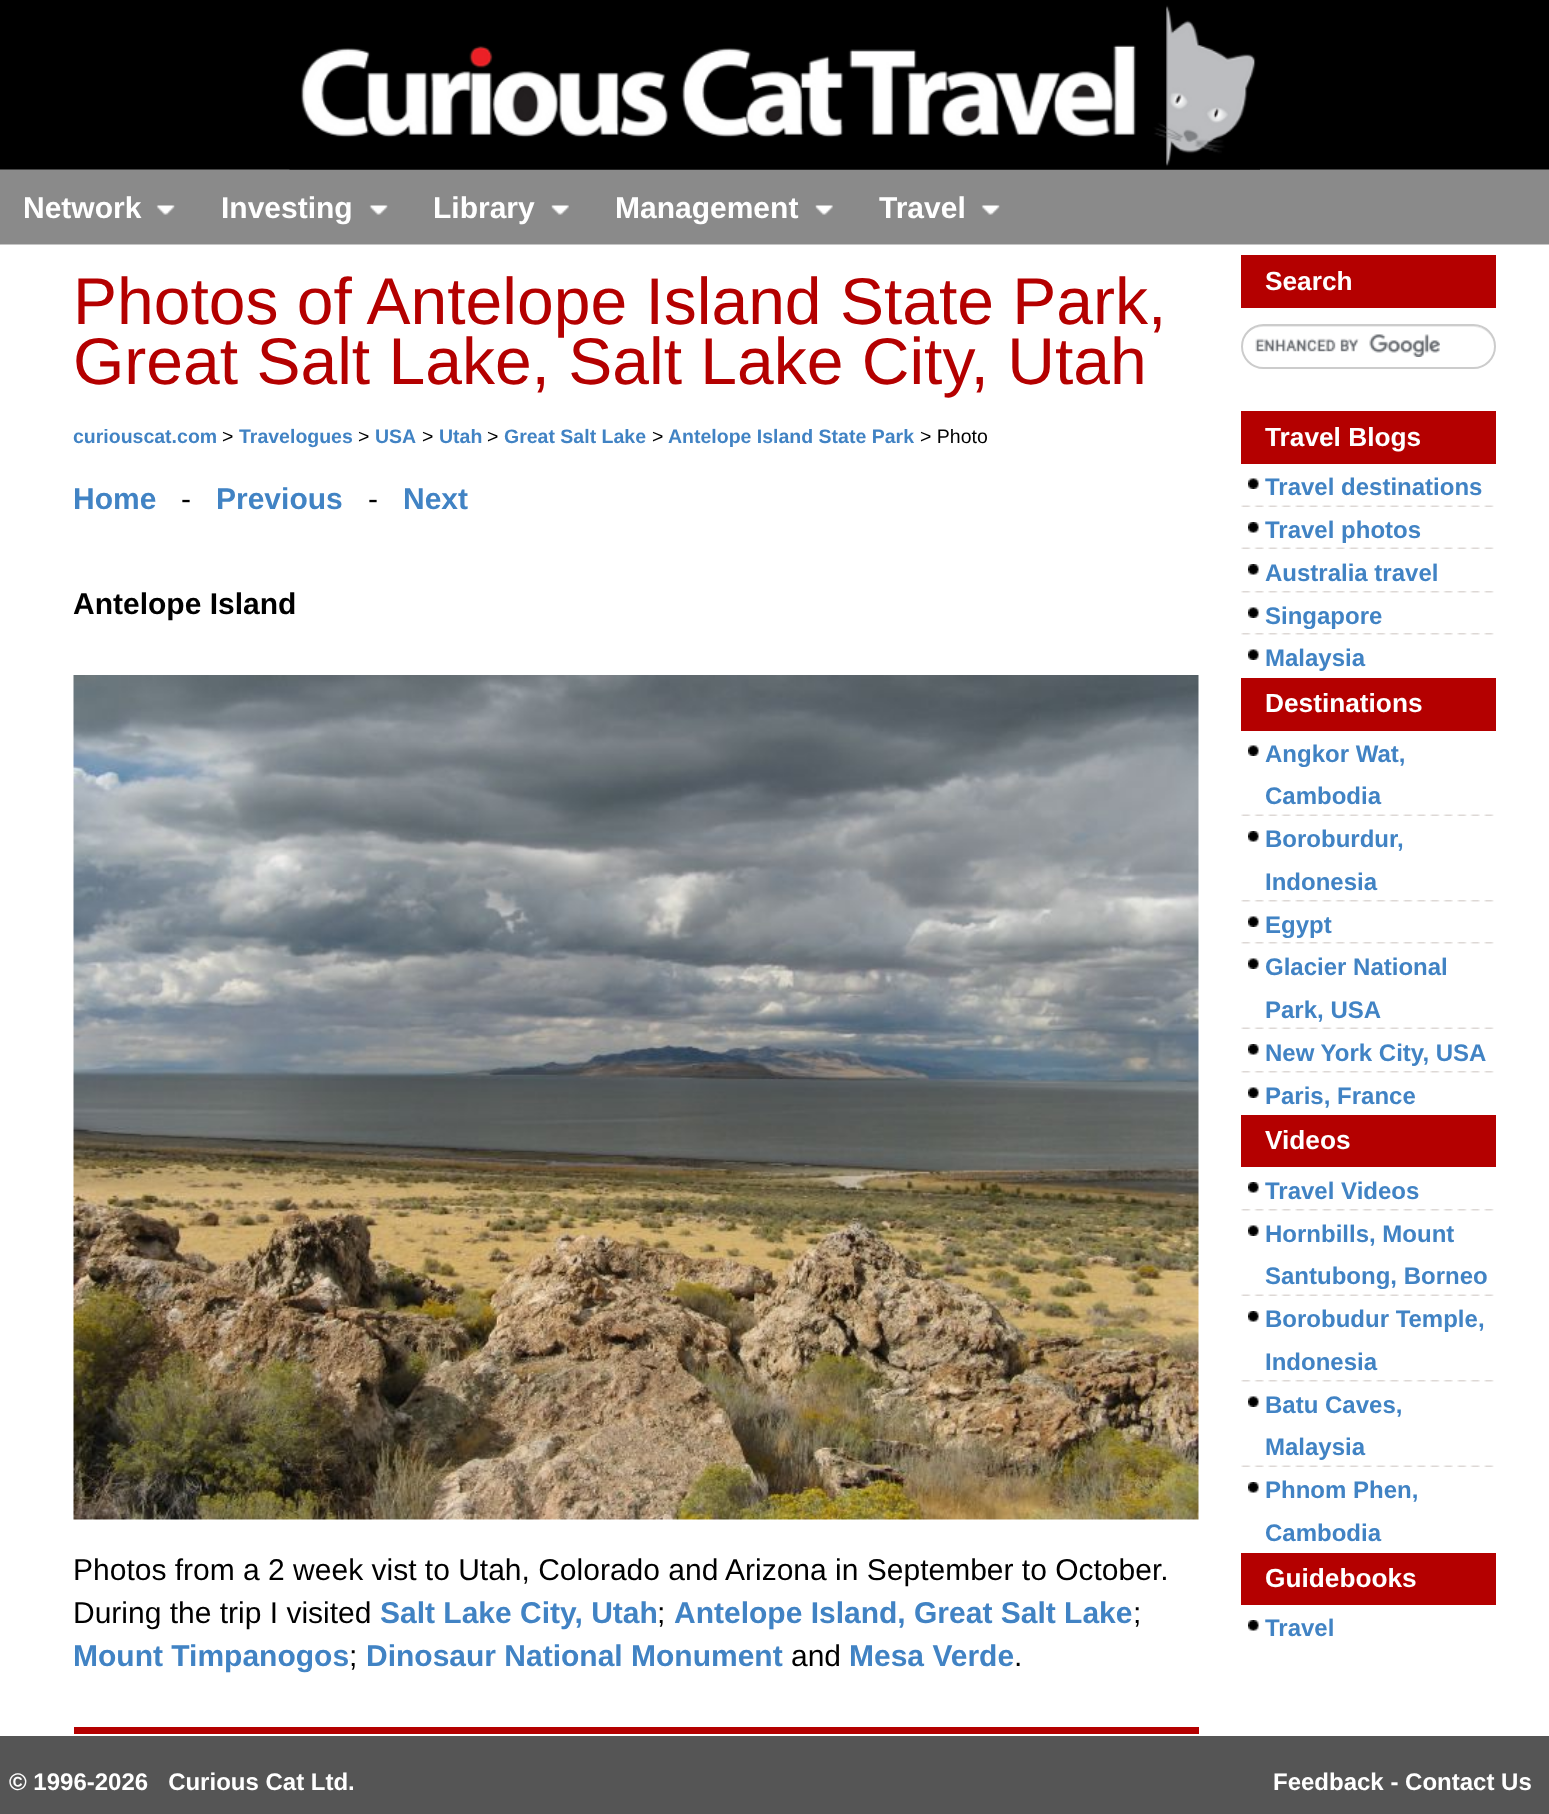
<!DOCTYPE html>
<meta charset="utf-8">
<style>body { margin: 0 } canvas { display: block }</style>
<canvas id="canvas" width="1549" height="1814"></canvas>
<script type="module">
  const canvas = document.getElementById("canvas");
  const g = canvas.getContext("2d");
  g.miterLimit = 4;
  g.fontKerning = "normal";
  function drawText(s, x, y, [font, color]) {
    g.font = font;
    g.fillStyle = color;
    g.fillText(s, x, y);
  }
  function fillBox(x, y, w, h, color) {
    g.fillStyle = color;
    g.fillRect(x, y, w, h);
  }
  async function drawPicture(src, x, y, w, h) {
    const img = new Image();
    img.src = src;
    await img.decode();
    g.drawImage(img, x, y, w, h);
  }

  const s1 = ["bold 30px Liberation Sans", "#FFFFFF"];
  const s2 = ["66px Liberation Sans", "#B40000"];
  const s3 = ["bold 19.5px Liberation Sans", "#4183C4"];
  const s4 = ["19.5px Liberation Sans", "#000000"];
  const s5 = ["bold 30px Liberation Sans", "#4183C4"];
  const s6 = ["30px Liberation Sans", "#000000"];
  const s7 = ["bold 30px Liberation Sans", "#000000"];
  const s8 = ["bold 26.25px Liberation Sans", "#FFFFFF"];
  const s9 = ["bold 24px Liberation Sans", "#4183C4"];
  const s10 = ["bold 24px Liberation Sans", "#FFFFFF"];

  fillBox(0, 0, 1549, 1814, "#FFFFFF");
  await drawPicture("pic1.png", 0, 0, 1549, 245);
  await drawPicture("pic2.png", 289, 5, 971, 165);
  drawText("Network", 23, 218, s1);
  await drawPicture("pic3.png", 156, 205, 19, 10);
  drawText("Investing", 221, 218, s1);
  await drawPicture("pic4.png", 369, 205, 19, 10);
  drawText("Library", 433, 218, s1);
  await drawPicture("pic5.png", 551, 205, 18, 10);
  drawText("Management", 615, 218, s1);
  await drawPicture("pic6.png", 815, 205, 18, 10);
  drawText("Travel", 879, 218, s1);
  await drawPicture("pic3.png", 981, 205, 19, 10);
  drawText("Photos of Antelope Island State Park,", 73, 324, s2);
  drawText("Great Salt Lake, Salt Lake City, Utah", 73, 384, s2);
  drawText("curiouscat.com", 73, 443, s3);
  drawText(">", 222, 443, s4);
  drawText("Travelogues", 239, 443, s3);
  drawText(">", 358, 443, s4);
  drawText("USA", 375, 443, s3);
  drawText(">", 422, 443, s4);
  drawText("Utah", 439, 443, s3);
  drawText(">", 487, 443, s4);
  drawText("Great Salt Lake", 504, 443, s3);
  drawText(">", 652, 443, s4);
  drawText("Antelope Island State Park", 668, 443, s3);
  drawText("> Photo", 920, 443, s4);
  fillBox(74, 1727, 1125, 7, "#B40000");
  drawText("Home", 73, 509, s5);
  drawText("-", 181, 509, s6);
  drawText("Previous", 216, 509, s5);
  drawText("-", 368, 509, s6);
  drawText("Next", 403, 509, s5);
  drawText("Antelope Island", 73, 614, s7);
  await drawPicture("pic7.png", 73, 675, 1126, 845);
  drawText("Photos from a 2 week vist to Utah, Colorado and Arizona in September to October.", 73, 1580, s6);
  drawText("During the trip I visited", 73, 1623, s6);
  drawText("Salt Lake City, Utah", 380, 1623, s5);
  drawText(";", 657, 1623, s6);
  drawText("Antelope Island, Great Salt Lake", 674, 1623, s5);
  drawText(";", 1133, 1623, s6);
  drawText("Mount Timpanogos", 73, 1666, s5);
  drawText(";", 349, 1666, s6);
  drawText("Dinosaur National Monument", 366, 1666, s5);
  drawText("and", 791, 1666, s6);
  drawText("Mesa Verde", 849, 1666, s5);
  drawText(".", 1014, 1666, s6);
  fillBox(1241, 255, 255, 53, "#B40000");
  drawText("Search", 1265, 290, s8);
  await drawPicture("pic8.png", 1255, 334, 185, 23);
  g.fillStyle = "#ECECEC";
  g.beginPath();
  g.moveTo(1263, 327);
  g.lineTo(1473, 327);
  g.bezierCurveTo(1485, 327, 1494, 336, 1494, 347);
  g.bezierCurveTo(1494, 335, 1485, 326, 1473, 326);
  g.lineTo(1263, 326);
  g.bezierCurveTo(1251, 326, 1242, 335, 1242, 347);
  g.bezierCurveTo(1242, 336, 1251, 327, 1263, 327);
  g.closePath();
  g.fill();
  g.beginPath();
  g.roundRect(1242, 325, 253, 43, 21.5);
  g.strokeStyle = "#CCCCCC";
  g.lineWidth = 2;
  g.stroke();
  fillBox(1241, 411, 255, 53, "#B40000");
  drawText("Travel Blogs", 1265, 446, s8);
  await drawPicture("pic9.png", 1248, 478, 11, 11);
  await drawPicture("pic10.png", 1241, 505, 253, 2);
  drawText("Travel destinations", 1265, 495, s9);
  await drawPicture("pic11.png", 1248, 522, 11, 11);
  await drawPicture("pic10.png", 1241, 547, 253, 2);
  drawText("Travel photos", 1265, 538, s9);
  await drawPicture("pic11.png", 1248, 564, 11, 11);
  await drawPicture("pic12.png", 1241, 591, 253, 2);
  drawText("Australia travel", 1265, 581, s9);
  await drawPicture("pic9.png", 1248, 607, 11, 11);
  await drawPicture("pic12.png", 1241, 633, 253, 2);
  drawText("Singapore", 1265, 624, s9);
  await drawPicture("pic9.png", 1248, 649, 11, 11);
  drawText("Malaysia", 1265, 666, s9);
  fillBox(1241, 678, 255, 53, "#B40000");
  drawText("Destinations", 1265, 712, s8);
  await drawPicture("pic9.png", 1248, 745, 11, 11);
  await drawPicture("pic10.png", 1241, 814, 253, 2);
  drawText("Angkor Wat,", 1265, 762, s9);
  drawText("Cambodia", 1265, 804, s9);
  await drawPicture("pic11.png", 1248, 831, 11, 11);
  await drawPicture("pic12.png", 1241, 900, 253, 2);
  drawText("Boroburdur,", 1265, 847, s9);
  drawText("Indonesia", 1265, 890, s9);
  await drawPicture("pic9.png", 1248, 916, 11, 11);
  await drawPicture("pic12.png", 1241, 942, 253, 2);
  drawText("Egypt", 1265, 933, s9);
  await drawPicture("pic9.png", 1248, 958, 11, 11);
  await drawPicture("pic10.png", 1241, 1027, 253, 2);
  drawText("Glacier National", 1265, 975, s9);
  drawText("Park, USA", 1265, 1018, s9);
  await drawPicture("pic11.png", 1248, 1044, 11, 11);
  await drawPicture("pic12.png", 1241, 1071, 253, 2);
  drawText("New York City, USA", 1265, 1061, s9);
  await drawPicture("pic9.png", 1248, 1087, 11, 11);
  drawText("Paris, France", 1265, 1104, s9);
  fillBox(1241, 1115, 255, 52, "#B40000");
  drawText("Videos", 1265, 1149, s8);
  await drawPicture("pic11.png", 1248, 1182, 11, 11);
  await drawPicture("pic12.png", 1241, 1209, 253, 2);
  drawText("Travel Videos", 1265, 1199, s9);
  await drawPicture("pic9.png", 1248, 1225, 11, 11);
  await drawPicture("pic10.png", 1241, 1294, 253, 2);
  drawText("Hornbills, Mount", 1265, 1242, s9);
  drawText("Santubong, Borneo", 1265, 1284, s9);
  await drawPicture("pic11.png", 1248, 1311, 11, 11);
  await drawPicture("pic12.png", 1241, 1380, 253, 2);
  drawText("Borobudur Temple,", 1265, 1327, s9);
  drawText("Indonesia", 1265, 1370, s9);
  await drawPicture("pic9.png", 1248, 1396, 11, 11);
  await drawPicture("pic10.png", 1241, 1465, 253, 2);
  drawText("Batu Caves,", 1265, 1413, s9);
  drawText("Malaysia", 1265, 1455, s9);
  await drawPicture("pic11.png", 1248, 1482, 11, 11);
  drawText("Phnom Phen,", 1265, 1498, s9);
  drawText("Cambodia", 1265, 1541, s9);
  fillBox(1241, 1553, 255, 52, "#B40000");
  drawText("Guidebooks", 1265, 1587, s8);
  await drawPicture("pic11.png", 1248, 1620, 11, 11);
  drawText("Travel", 1265, 1636, s9);
  fillBox(0, 1736, 1549, 78, "#555555");
  drawText("© 1996-2026   Curious Cat Ltd.", 9, 1790, s10);
  drawText("Feedback - Contact Us", 1273, 1790, s10);
</script>
